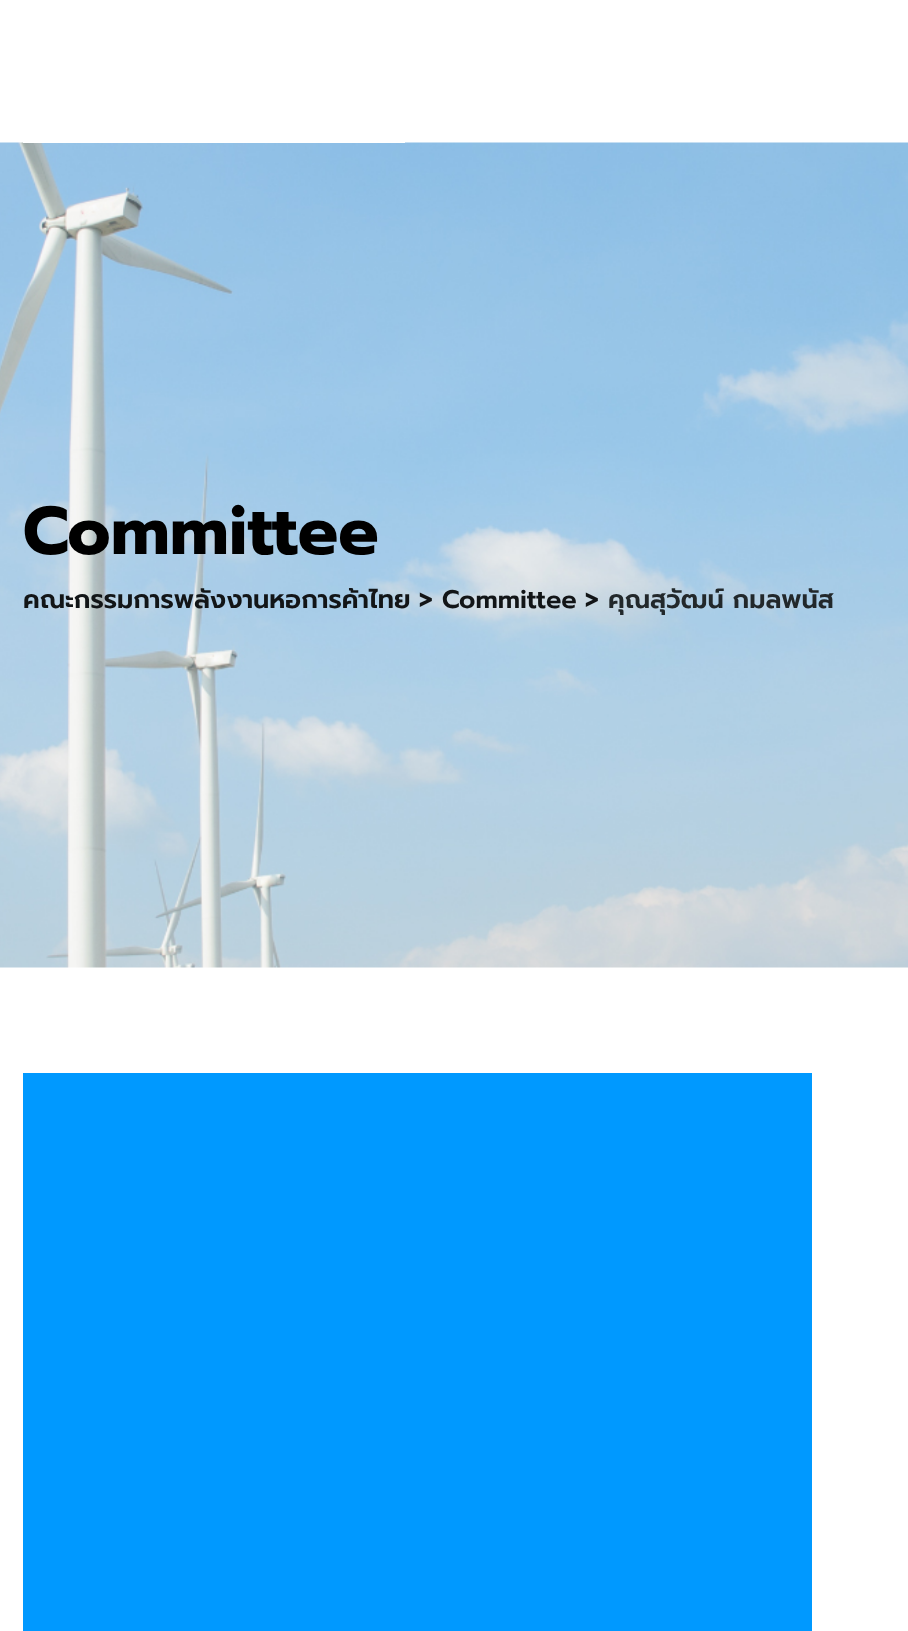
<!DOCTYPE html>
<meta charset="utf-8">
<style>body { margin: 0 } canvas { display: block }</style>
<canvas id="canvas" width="908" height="1631"></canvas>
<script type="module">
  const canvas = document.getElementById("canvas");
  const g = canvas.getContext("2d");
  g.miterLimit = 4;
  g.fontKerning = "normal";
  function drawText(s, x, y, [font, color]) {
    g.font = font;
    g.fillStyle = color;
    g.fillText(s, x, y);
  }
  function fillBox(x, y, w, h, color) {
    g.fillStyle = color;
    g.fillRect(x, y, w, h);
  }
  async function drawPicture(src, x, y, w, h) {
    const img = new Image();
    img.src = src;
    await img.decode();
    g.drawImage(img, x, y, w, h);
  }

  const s1 = ["bold 67.5px Prompt", "#000000"];
  const s2 = ["600 25.5px Prompt", "#121517"];
  const s3 = ["600 25.5px Prompt", "#22282B"];

  fillBox(0, 0, 908, 1631, "#FFFFFF");
  await drawPicture("pic1.png", 0, 142, 908, 826);
  fillBox(23, 142, 382, 1, "#FFFFFF");
  drawText("Committee", 23, 554, s1);
  drawText("คณะกรรมการพลังงานหอการค้าไทย", 23, 608, s2);
  drawText(">", 419, 608, s2);
  drawText("Committee", 442, 608, s2);
  drawText(">", 585, 608, s2);
  drawText("คุณสุวัฒน์ กมลพนัส", 608, 608, s3);
  fillBox(23, 1073, 789, 558, "#0099FF");
</script>
